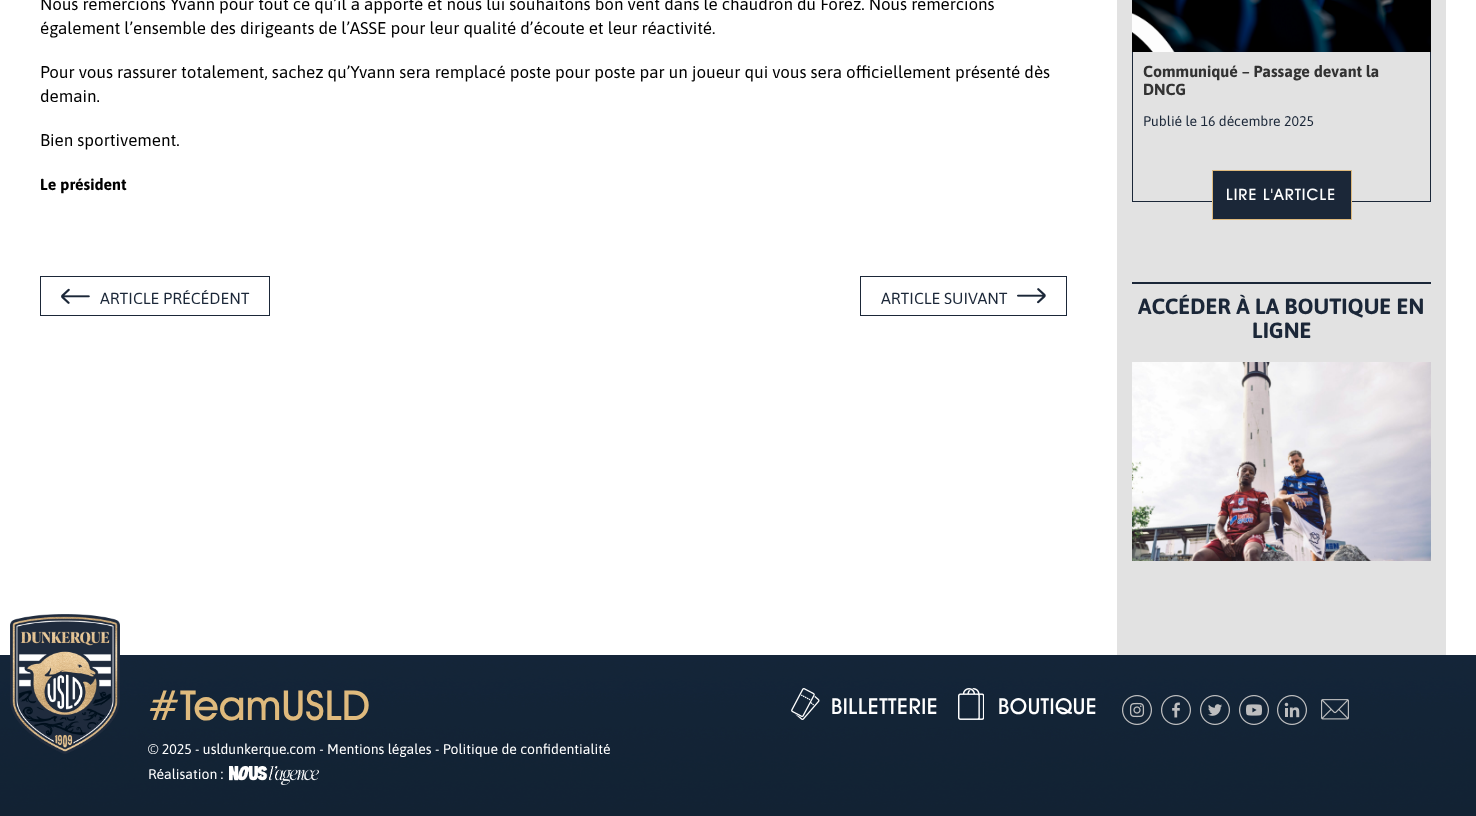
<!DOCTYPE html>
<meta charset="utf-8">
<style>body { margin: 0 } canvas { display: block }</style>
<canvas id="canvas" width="1476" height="816"></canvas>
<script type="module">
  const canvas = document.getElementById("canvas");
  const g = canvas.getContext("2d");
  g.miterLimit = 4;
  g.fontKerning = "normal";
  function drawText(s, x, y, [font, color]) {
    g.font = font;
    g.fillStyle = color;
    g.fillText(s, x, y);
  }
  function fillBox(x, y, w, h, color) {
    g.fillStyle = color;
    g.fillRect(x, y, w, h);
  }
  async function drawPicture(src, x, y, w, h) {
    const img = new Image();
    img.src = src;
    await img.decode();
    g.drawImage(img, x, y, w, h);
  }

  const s1 = ["17px Asap", "#000000"];
  const s2 = ["bold 16px Asap", "#000000"];
  const s3 = ["16px Asap", "#1B2738"];
  const s4 = ["bold 16px Asap", "#333333"];
  const s5 = ["14px Asap", "#1B2738"];
  const s6 = ["500 16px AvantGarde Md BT", "#FFFFFF"];
  const s7 = ["bold 22px Asap", "#1B2738"];
  const s8 = ["500 41.5px AvantGarde Md BT", "#DFBA7D"];
  const s9 = ["14px Asap", "#FFFFFF"];
  const s10 = ["500 22px AvantGarde Md BT", "#FFFFFF"];

  fillBox(0, 0, 1476, 816, "#FFFFFF");
  await drawPicture("pic1.png", 0, 655, 1476, 161);
  drawText("Nous remercions Yvann pour tout ce qu’il a apporté et nous lui souhaitons bon vent dans le chaudron du Forez. Nous remercions", 40, 10, s1);
  drawText("également l’ensemble des dirigeants de l’ASSE pour leur qualité d’écoute et leur réactivité.", 40, 34, s1);
  drawText("Pour vous rassurer totalement, sachez qu’Yvann sera remplacé poste pour poste par un joueur qui vous sera officiellement présenté dès", 40, 78, s1);
  drawText("demain.", 40, 102, s1);
  drawText("Bien sportivement.", 40, 146, s1);
  drawText("Le président", 40, 190, s2);
  g.strokeStyle = "#1B2738";
  g.strokeRect(40.5, 276.5, 229, 39);
  await drawPicture("pic2.png", 61, 288, 29, 16);
  drawText("ARTICLE PRÉCÉDENT", 100, 304, s3);
  g.strokeRect(860.5, 276.5, 206, 39);
  drawText("ARTICLE SUIVANT", 881, 304, s3);
  await drawPicture("pic3.png", 1017, 288, 29, 16);
  fillBox(1117, 0, 329, 655, "#E2E2E2");
  await drawPicture("pic4.png", 1132, 0, 299, 52);
  fillBox(1430, 52, 1, 150, "#1B2738");
  fillBox(1132, 201, 299, 1, "#1B2738");
  fillBox(1132, 52, 1, 150, "#1B2738");
  drawText("Communiqué – Passage devant la", 1143, 77, s4);
  drawText("DNCG", 1143, 95, s4);
  drawText("Publié le 16 décembre 2025", 1143, 126, s5);
  g.beginPath();
  g.rect(1212.5, 170.5, 139, 49);
  g.fill();
  g.strokeStyle = "#DFBA7D";
  g.stroke();
  g.letterSpacing = "1px";
  drawText("LIRE L'ARTICLE", 1226, 200, s6);
  fillBox(1132, 282, 299, 2, "#1B2738");
  g.letterSpacing = "0px";
  drawText("ACCÉDER À LA BOUTIQUE EN", 1138, 314, s7);
  drawText("LIGNE", 1252, 338, s7);
  await drawPicture("pic5.png", 1132, 362, 299, 199);
  await drawPicture("pic6.png", 10, 614, 110, 140);
  drawText("#TeamUSLD", 148, 720, s8);
  drawText("© 2025 - usldunkerque.com - Mentions légales - Politique de confidentialité", 148, 754, s9);
  drawText("Réalisation :", 148, 779, s9);
  await drawPicture("pic7.png", 229, 766, 90, 19);
  await drawPicture("pic8.png", 791, 688, 29, 32);
  g.letterSpacing = "0.5px";
  drawText("BILLETTERIE", 831, 714, s10);
  await drawPicture("pic9.png", 958, 688, 26, 32);
  drawText("BOUTIQUE", 998, 714, s10);
  await drawPicture("pic10.png", 1122, 695, 30, 30);
  await drawPicture("pic11.png", 1161, 695, 30, 30);
  await drawPicture("pic12.png", 1200, 695, 30, 30);
  await drawPicture("pic13.png", 1239, 695, 30, 30);
  await drawPicture("pic14.png", 1277, 695, 30, 30);
  await drawPicture("pic15.png", 1321, 699, 28, 21);
</script>
